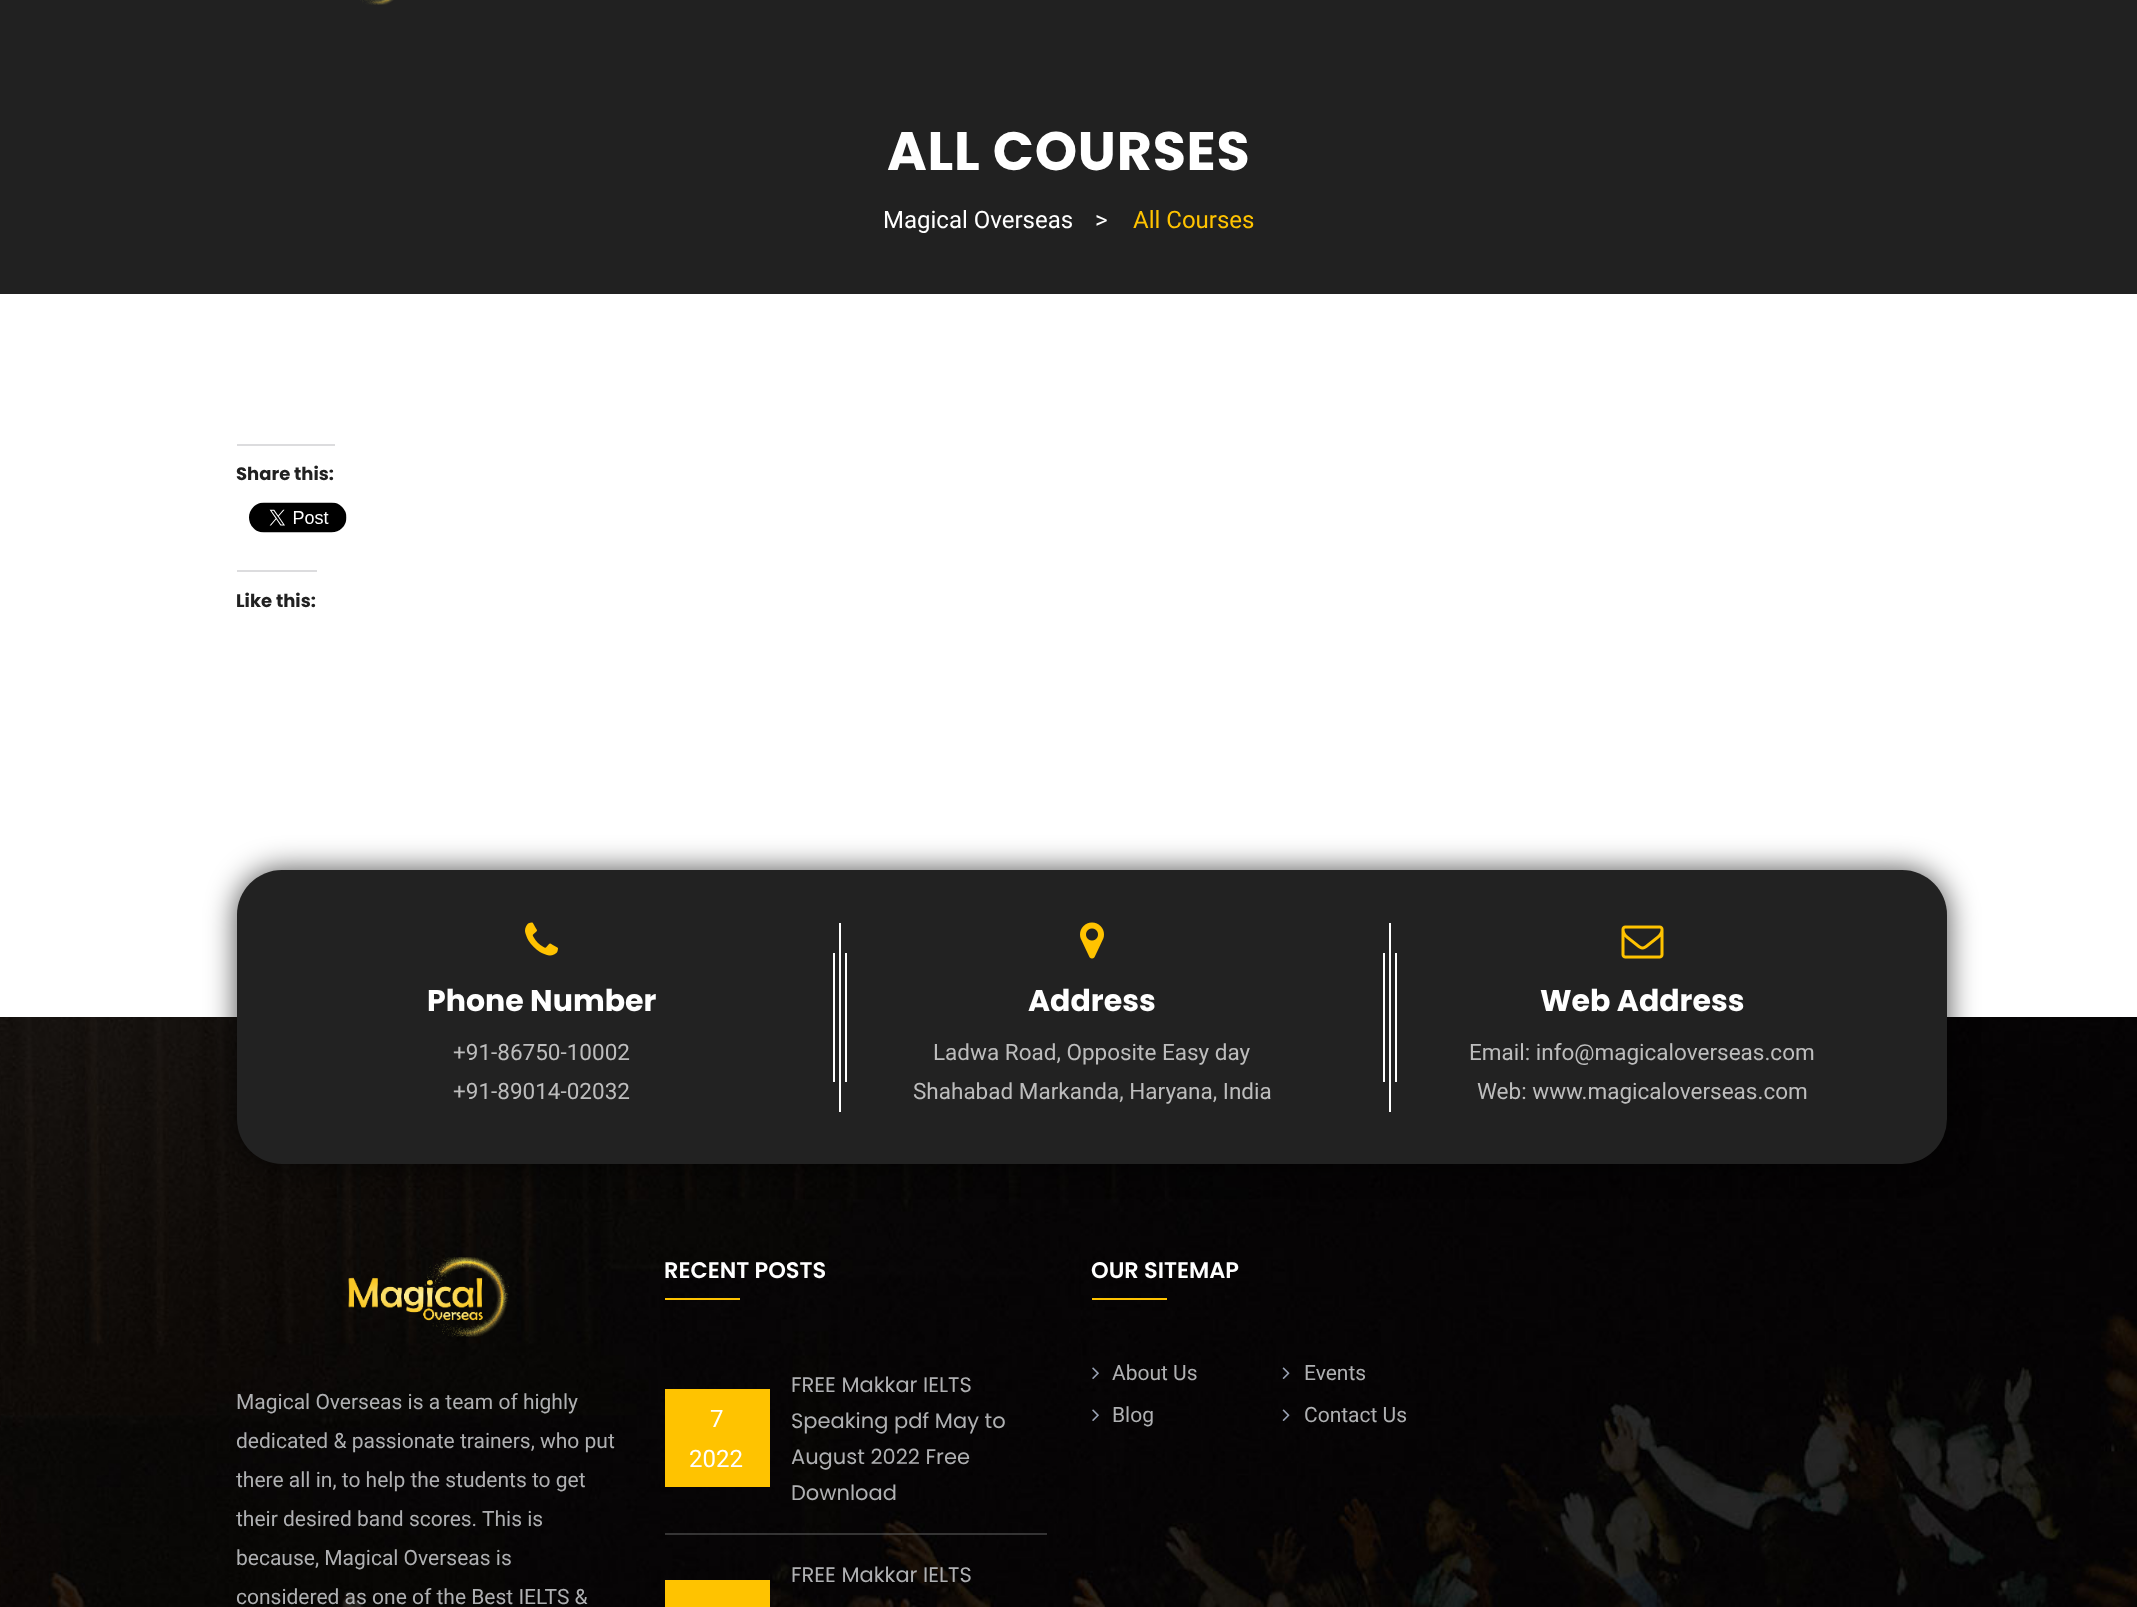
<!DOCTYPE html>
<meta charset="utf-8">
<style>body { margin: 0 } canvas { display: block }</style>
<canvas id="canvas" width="2137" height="1607"></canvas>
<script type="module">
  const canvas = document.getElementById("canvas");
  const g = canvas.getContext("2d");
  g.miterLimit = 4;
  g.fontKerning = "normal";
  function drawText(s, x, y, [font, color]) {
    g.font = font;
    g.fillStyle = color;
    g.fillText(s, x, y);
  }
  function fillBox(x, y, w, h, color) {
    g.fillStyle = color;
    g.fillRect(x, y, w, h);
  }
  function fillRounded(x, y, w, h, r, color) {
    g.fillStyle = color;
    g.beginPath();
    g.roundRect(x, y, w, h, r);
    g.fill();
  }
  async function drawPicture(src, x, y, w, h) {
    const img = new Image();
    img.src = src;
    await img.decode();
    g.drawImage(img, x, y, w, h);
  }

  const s1 = ["bold 54px Poppins", "#FFFFFF"];
  const s2 = ["24px Roboto", "#FFFFFF"];
  const s3 = ["24px Roboto", "#FFC300"];
  const s4 = ["bold 18px Poppins", "#212121"];
  const s5 = ["bold 30px Poppins", "#FFFFFF"];
  const s6 = ["22.5px Roboto", "#BDBDBD"];
  const s7 = ["600 22.5px Poppins", "#FFFFFF"];
  const s8 = ["21px Poppins", "#AFB0B2"];
  const s9 = ["21px Roboto", "#AFB0B2"];

  fillBox(0, 0, 2137, 1607, "#FFFFFF");
  fillBox(0, 0, 2137, 294, "#212121");
  await drawPicture("pic1.png", 360, 0, 34, 5);
  g.letterSpacing = "0.75px";
  drawText("ALL COURSES", 887, 170, s1);
  g.letterSpacing = "0px";
  drawText("Magical Overseas", 883, 228, s2);
  drawText(">", 1095, 228, s2);
  drawText("All Courses", 1133, 228, s3);
  fillBox(237, 444, 98, 2, "#DCDCDE");
  drawText("Share this:", 236, 480, s4);
  await drawPicture("pic2.png", 249, 502, 98, 31);
  fillBox(237, 570, 80, 2, "#DCDCDE");
  drawText("Like this:", 236, 607, s4);
  await drawPicture("pic3.png", 0, 1017, 2137, 590);
  g.fillStyle = "rgba(0, 0, 0, 0.7)";
  g.filter = "blur(15px)";
  g.beginPath();
  g.roundRect(237, 870, 1710, 294, 45);
  g.fill();
  g.filter = "none";
  fillRounded(237, 870, 1710, 294, 45, "#222222");
  await drawPicture("pic4.png", 525, 922, 33, 34);
  drawText("Phone Number", 427, 1011, s5);
  drawText("+91-86750-10002", 453, 1060, s6);
  drawText("+91-89014-02032", 453, 1099, s6);
  fillBox(839, 923, 2, 189, "#FFFFFF");
  fillBox(833, 953, 2, 129, "#FFFFFF");
  fillBox(845, 953, 2, 129, "#FFFFFF");
  await drawPicture("pic5.png", 1080, 922, 24, 37);
  drawText("Address", 1028, 1011, s5);
  drawText("Ladwa Road, Opposite Easy day", 933, 1060, s6);
  drawText("Shahabad Markanda, Haryana, India", 913, 1099, s6);
  fillBox(1389, 923, 2, 189, "#FFFFFF");
  fillBox(1383, 953, 2, 129, "#FFFFFF");
  fillBox(1395, 953, 2, 129, "#FFFFFF");
  await drawPicture("pic6.png", 1621, 925, 43, 34);
  drawText("Web Address", 1540, 1011, s5);
  drawText("Email: info@magicaloverseas.com", 1469, 1060, s6);
  drawText("Web: www.magicaloverseas.com", 1477, 1099, s6);
  drawText("RECENT POSTS", 664, 1278, s7);
  fillBox(665, 1298, 75, 2, "#FFC300");
  fillBox(665, 1389, 105, 98, "#FFC300");
  drawText("7", 710, 1427, s2);
  drawText("2022", 689, 1467, s2);
  drawText("FREE Makkar IELTS", 791, 1392, s8);
  drawText("Speaking pdf May to", 791, 1428, s8);
  drawText("August 2022 Free", 791, 1464, s8);
  drawText("Download", 791, 1500, s8);
  fillBox(665, 1533, 382, 2, "rgba(102, 102, 102, 0.5)");
  drawText("FREE Makkar IELTS", 791, 1582, s8);
  fillBox(665, 1580, 105, 27, "#FFC300");
  drawText("OUR SITEMAP", 1091, 1278, s7);
  fillBox(1092, 1298, 75, 2, "#FFC300");
  await drawPicture("pic7.png", 1092, 1367, 7, 12);
  drawText("About Us", 1112, 1380, s9);
  await drawPicture("pic8.png", 1282, 1367, 8, 12);
  drawText("Events", 1304, 1380, s9);
  await drawPicture("pic9.png", 1092, 1409, 7, 12);
  drawText("Blog", 1112, 1422, s9);
  await drawPicture("pic10.png", 1282, 1409, 8, 12);
  drawText("Contact Us", 1304, 1422, s9);
  await drawPicture("pic11.png", 348, 1257, 161, 80);
  drawText("Magical Overseas is a team of highly", 236, 1409, s9);
  drawText("dedicated & passionate trainers, who put", 236, 1448, s9);
  drawText("there all in, to help the students to get", 236, 1487, s9);
  drawText("their desired band scores. This is", 236, 1526, s9);
  drawText("because, Magical Overseas is", 236, 1565, s9);
  drawText("considered as one of the Best IELTS &", 236, 1604, s9);
</script>
